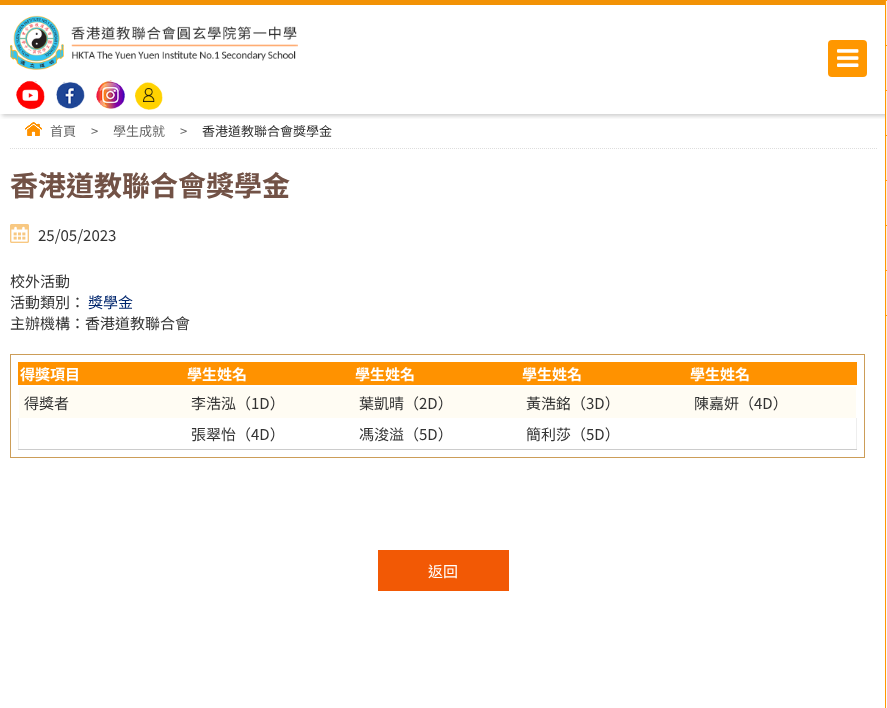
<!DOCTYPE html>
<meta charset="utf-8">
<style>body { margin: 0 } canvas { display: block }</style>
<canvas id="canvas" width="887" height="708"></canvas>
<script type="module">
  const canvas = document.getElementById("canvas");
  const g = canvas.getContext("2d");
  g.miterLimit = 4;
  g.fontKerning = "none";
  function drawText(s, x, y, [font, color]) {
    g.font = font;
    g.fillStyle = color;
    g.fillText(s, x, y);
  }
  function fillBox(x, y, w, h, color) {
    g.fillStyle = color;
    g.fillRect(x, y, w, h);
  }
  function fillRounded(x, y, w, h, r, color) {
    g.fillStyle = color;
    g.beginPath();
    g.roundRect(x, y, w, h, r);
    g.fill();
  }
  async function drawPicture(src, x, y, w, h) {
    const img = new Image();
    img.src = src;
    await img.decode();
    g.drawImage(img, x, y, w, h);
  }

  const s1 = ["13px Noto Sans HK", "#666666"];
  const s2 = ["13px Noto Sans HK", "#333333"];
  const s3 = ["bold 28px Noto Sans HK", "#725246"];
  const s4 = ["15px Noto Sans HK", "#333333"];
  const s5 = ["15px Noto Sans HK", "#00266E"];
  const s6 = ["bold 15px Noto Sans HK", "#FFFFFF"];
  const s7 = ["15px Noto Sans HK", "#FFFFFF"];

  fillBox(0, 0, 887, 708, "#FFFFFF");
  await drawPicture("pic7.png", 25, 122, 17, 14);
  g.save();
  g.beginPath();
  g.rect(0, 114, 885, 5);
  g.clip();
  g.fillStyle = "rgba(0, 0, 0, 0.2)";
  g.filter = "blur(2px)";
  g.beginPath();
  g.rect(2, 2, 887, 114);
  g.fill();
  g.filter = "none";
  g.restore();
  fillBox(0, 0, 887, 5, "#F29205");
  await drawPicture("pic1.png", 10, 15, 288, 55);
  await drawPicture("pic2.png", 16, 80, 29, 30);
  await drawPicture("pic3.png", 56, 81, 29, 28);
  await drawPicture("pic4.png", 96, 80, 29, 29);
  await drawPicture("pic5.png", 135, 82, 28, 28);
  fillRounded(828, 40, 39, 37, 4, "#FF9700");
  await drawPicture("pic6.png", 837, 49, 22, 18);
  fillBox(886, 360, 1, 348, "#FCFCFC");
  g.strokeStyle = "#FF9800";
  g.strokeRect(885.5, 0.5, 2, 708);
  fillBox(886, 1, 1, 359, "#FFF2DE");
  fillBox(886, 45, 1, 1, "#FF9800");
  fillBox(886, 90, 1, 1, "#FF9800");
  fillBox(886, 135, 1, 1, "#FF9800");
  fillBox(886, 180, 1, 1, "#FF9800");
  fillBox(886, 225, 1, 1, "#FF9800");
  fillBox(886, 270, 1, 1, "#FF9800");
  fillBox(886, 315, 1, 1, "#FF9800");
  g.beginPath();
  g.moveTo(10, 148.5);
  g.lineTo(877, 148.5);
  g.strokeStyle = "#DDDDDD";
  g.setLineDash([1, 1]);
  g.stroke();
  drawText("首頁", 50, 136, s1);
  drawText(">", 91, 136, s1);
  drawText("學生成就", 113, 136, s1);
  drawText(">", 180, 136, s1);
  drawText("香港道教聯合會獎學金", 202, 136, s2);
  drawText("香港道教聯合會獎學金", 10, 196, s3);
  await drawPicture("pic8.png", 10, 224, 19, 19);
  drawText("25/05/2023", 38, 241, s4);
  drawText("校外活動", 10, 287, s4);
  drawText("活動類別：", 10, 308, s4);
  drawText("獎學金", 88, 308, s5);
  drawText("主辦機構：香港道教聯合會", 10, 329, s4);
  g.strokeStyle = "#CC9D58";
  g.setLineDash([]);
  g.strokeRect(10.5, 354.5, 854, 103);
  fillBox(18, 362, 839, 23, "#FF9200");
  drawText("得獎項目", 20, 380, s6);
  drawText("學生姓名", 187, 380, s6);
  drawText("學生姓名", 355, 380, s6);
  drawText("學生姓名", 522, 380, s6);
  drawText("學生姓名", 690, 380, s6);
  fillBox(19, 387, 837, 31, "#FFFCF3");
  drawText("得獎者", 24, 409, s4);
  drawText("李浩泓（1D）", 191, 409, s4);
  drawText("葉凱晴（2D）", 359, 409, s4);
  drawText("黃浩銘（3D）", 526, 409, s4);
  drawText("陳嘉妍（4D）", 694, 409, s4);
  fillBox(18, 418, 839, 31, "#EEEEEE");
  fillBox(18, 449, 839, 1, "#CCCCCC");
  fillBox(19, 418, 837, 31, "#FFFFFF");
  drawText("張翠怡（4D）", 191, 440, s4);
  drawText("馮浚溢（5D）", 359, 440, s4);
  drawText("簡利莎（5D）", 526, 440, s4);
  fillBox(378, 550, 131, 41, "#F25905");
  drawText("返回", 428, 577, s7);
</script>
